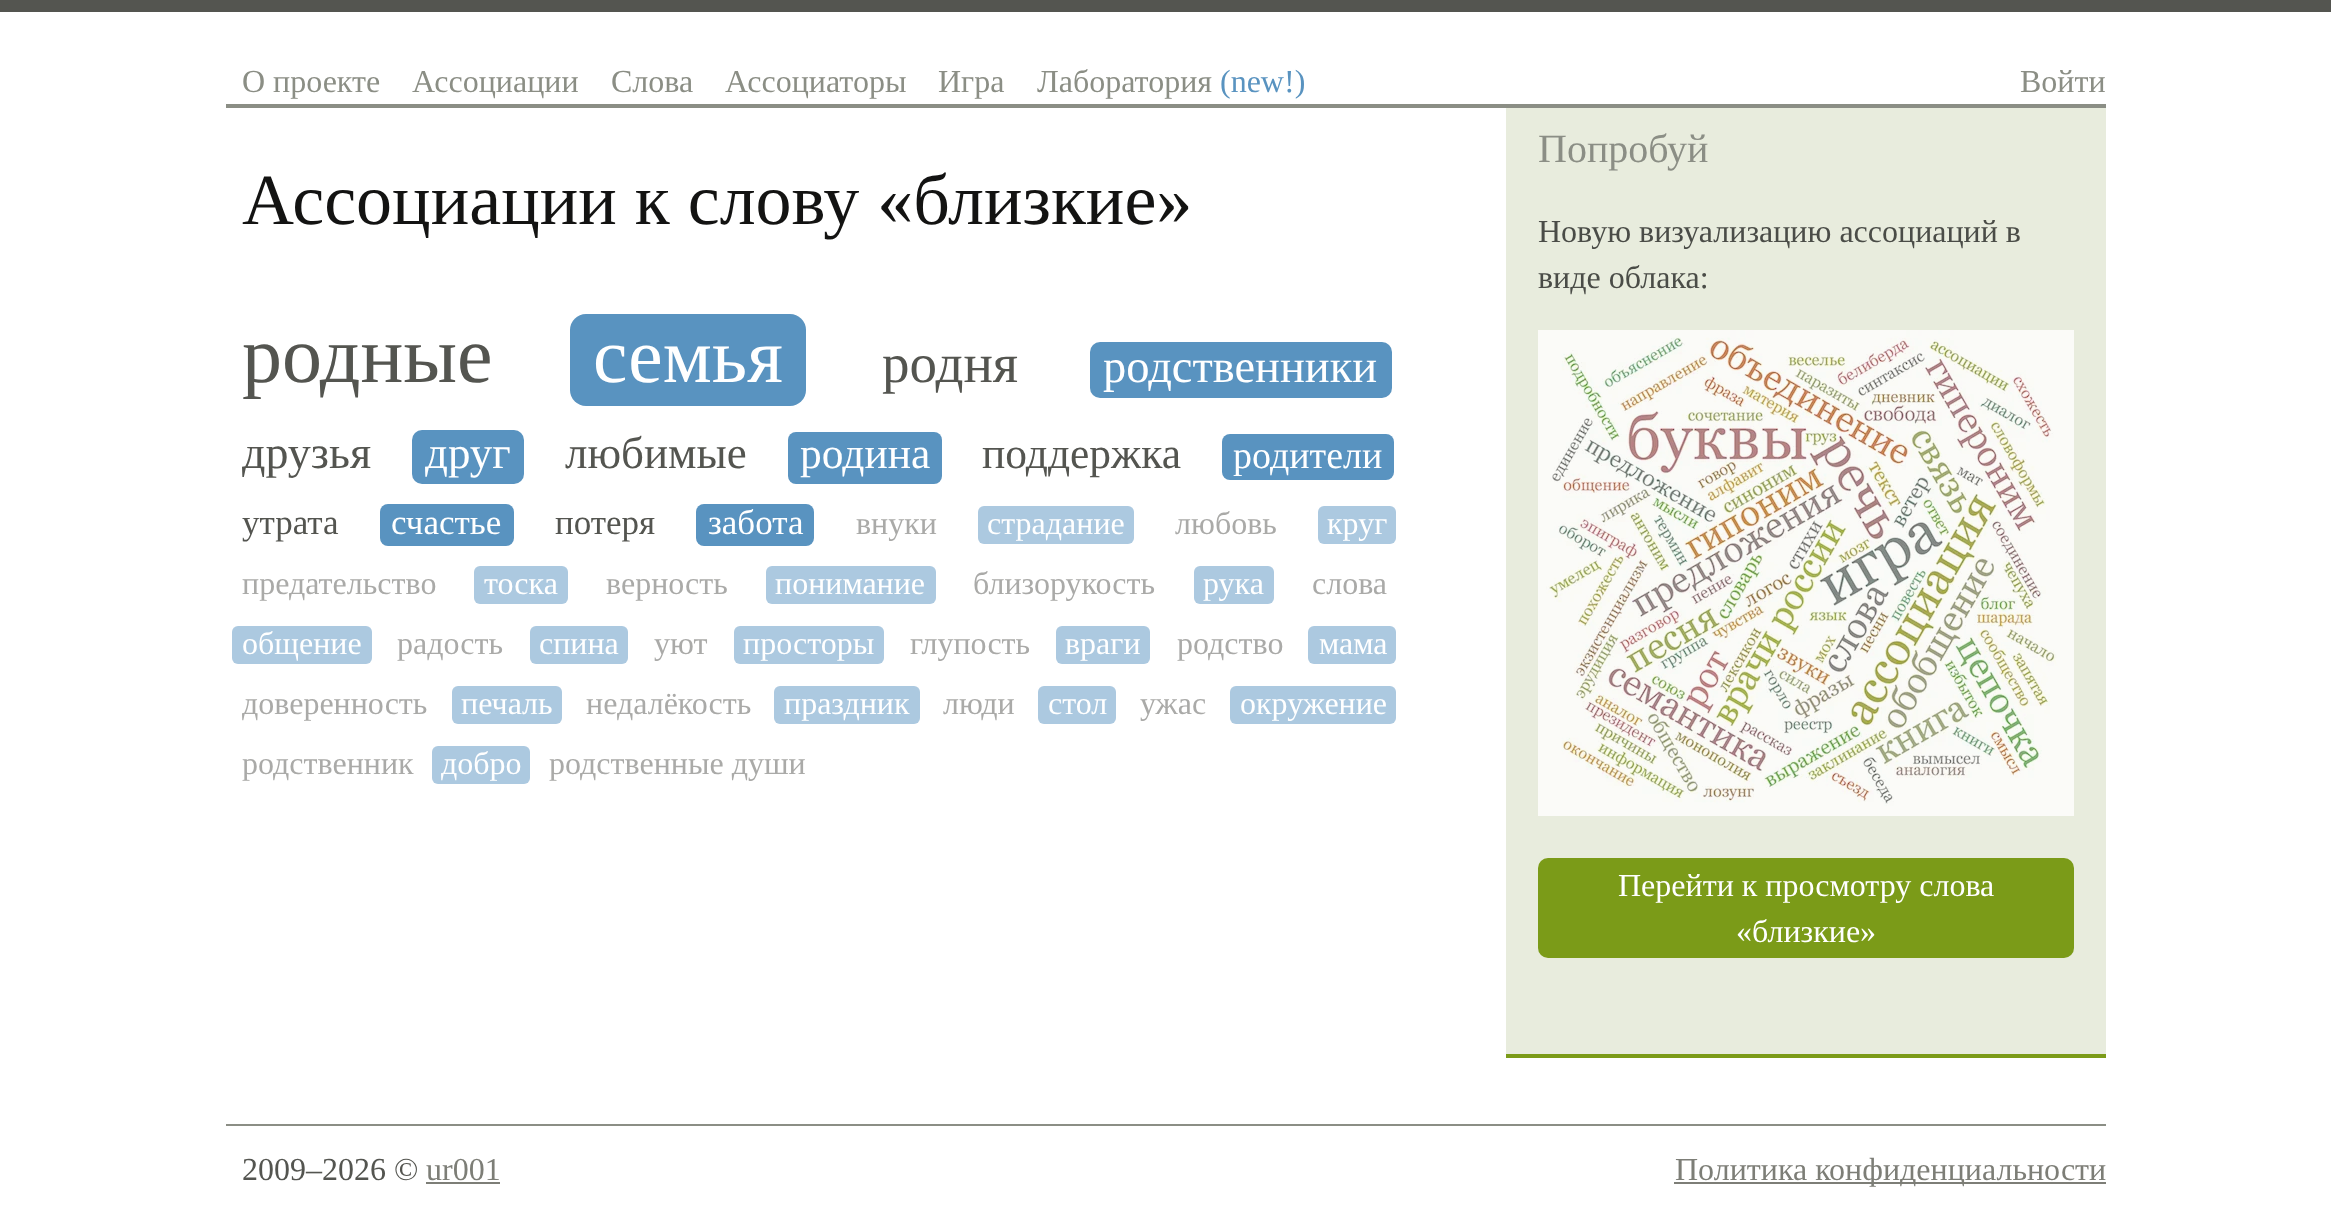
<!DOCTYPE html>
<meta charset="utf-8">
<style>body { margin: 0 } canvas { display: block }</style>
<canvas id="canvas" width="2331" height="1205"></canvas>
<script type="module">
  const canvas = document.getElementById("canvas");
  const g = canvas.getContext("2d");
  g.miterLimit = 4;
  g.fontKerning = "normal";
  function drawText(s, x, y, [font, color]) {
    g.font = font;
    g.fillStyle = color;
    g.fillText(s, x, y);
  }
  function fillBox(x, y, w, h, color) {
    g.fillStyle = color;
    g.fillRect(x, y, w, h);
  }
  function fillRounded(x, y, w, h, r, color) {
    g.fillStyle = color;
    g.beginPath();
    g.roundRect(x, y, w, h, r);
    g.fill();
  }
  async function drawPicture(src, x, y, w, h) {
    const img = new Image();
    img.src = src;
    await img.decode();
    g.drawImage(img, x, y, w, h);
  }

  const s1 = ["32px Liberation Serif", "#8B8E85"];
  const s2 = ["32px Liberation Serif", "#5993C0"];
  const s3 = ["72px Liberation Serif", "#131312"];
  const s4 = ["80px Liberation Serif", "#545550"];
  const s5 = ["77.5px Liberation Serif", "#FFFFFF"];
  const s6 = ["55px Liberation Serif", "#545550"];
  const s7 = ["46.5px Liberation Serif", "#FFFFFF"];
  const s8 = ["46px Liberation Serif", "#545550"];
  const s9 = ["45px Liberation Serif", "#FFFFFF"];
  const s10 = ["45px Liberation Serif", "#545550"];
  const s11 = ["43.5px Liberation Serif", "#FFFFFF"];
  const s12 = ["43.5px Liberation Serif", "#545550"];
  const s13 = ["38px Liberation Serif", "#FFFFFF"];
  const s14 = ["35px Liberation Serif", "#545550"];
  const s15 = ["35px Liberation Serif", "#FFFFFF"];
  const s16 = ["32px Liberation Serif", "#AAAAA8"];
  const s17 = ["32px Liberation Serif", "#FFFFFF"];
  const s18 = ["40px Liberation Serif", "#8B8E85"];
  const s19 = ["32px Liberation Serif", "#4A4C47"];
  const s20 = ["32px Liberation Serif", "#545550"];
  const s21 = ["32px Liberation Serif", "#7D7E77"];

  fillBox(0, 0, 2331, 1205, "#FFFFFF");
  fillBox(0, 0, 2331, 12, "#545550");
  fillBox(226, 104, 1880, 4, "#8B8E85");
  drawText("О проекте", 242, 92, s1);
  drawText("Ассоциации", 412, 92, s1);
  drawText("Слова", 611, 92, s1);
  drawText("Ассоциаторы", 725, 92, s1);
  drawText("Игра", 938, 92, s1);
  drawText("Лаборатория", 1037, 92, s1);
  drawText("(new!)", 1220, 92, s2);
  drawText("Войти", 2020, 92, s1);
  drawText("Ассоциации к слову «близкие»", 242, 224, s3);
  drawText("родные", 242, 382, s4);
  fillRounded(570, 314, 236, 92, 16, "#5993C0");
  drawText("семья", 593, 382, s5);
  drawText("родня", 882, 382, s6);
  fillRounded(1090, 342, 302, 56, 10, "#5993C0");
  drawText("родственники", 1103, 382, s7);
  drawText("друзья", 242, 468, s8);
  fillRounded(412, 430, 112, 54, 10, "#5993C0");
  drawText("друг", 425, 468, s9);
  drawText("любимые", 565, 468, s10);
  fillRounded(788, 432, 154, 52, 8, "#5993C0");
  drawText("родина", 800, 468, s11);
  drawText("поддержка", 982, 468, s12);
  fillRounded(1222, 434, 172, 46, 8, "#5993C0");
  drawText("родители", 1233, 468, s13);
  drawText("утрата", 242, 534, s14);
  fillRounded(380, 504, 134, 42, 8, "#5993C0");
  drawText("счастье", 391, 534, s15);
  drawText("потеря", 555, 534, s14);
  fillRounded(696, 504, 118, 42, 8, "#5993C0");
  drawText("забота", 708, 534, s15);
  drawText("внуки", 856, 534, s16);
  fillRounded(978, 506, 156, 38, 6, "#ACC9E0");
  drawText("страдание", 987, 534, s17);
  drawText("любовь", 1175, 534, s16);
  fillRounded(1318, 506, 78, 38, 6, "#ACC9E0");
  drawText("круг", 1327, 534, s17);
  drawText("предательство", 242, 594, s16);
  fillRounded(474, 566, 94, 38, 6, "#ACC9E0");
  drawText("тоска", 484, 594, s17);
  drawText("верность", 606, 594, s16);
  fillRounded(766, 566, 170, 38, 6, "#ACC9E0");
  drawText("понимание", 775, 594, s17);
  drawText("близорукость", 973, 594, s16);
  fillRounded(1194, 566, 80, 38, 6, "#ACC9E0");
  drawText("рука", 1203, 594, s17);
  drawText("слова", 1312, 594, s16);
  fillRounded(232, 626, 140, 38, 6, "#ACC9E0");
  drawText("общение", 242, 654, s17);
  drawText("радость", 397, 654, s16);
  fillRounded(530, 626, 98, 38, 6, "#ACC9E0");
  drawText("спина", 539, 654, s17);
  drawText("уют", 654, 654, s16);
  fillRounded(734, 626, 150, 38, 6, "#ACC9E0");
  drawText("просторы", 743, 654, s17);
  drawText("глупость", 910, 654, s16);
  fillRounded(1056, 626, 94, 38, 6, "#ACC9E0");
  drawText("враги", 1065, 654, s17);
  drawText("родство", 1177, 654, s16);
  fillRounded(1308, 626, 88, 38, 6, "#ACC9E0");
  drawText("мама", 1319, 654, s17);
  drawText("доверенность", 242, 714, s16);
  fillRounded(452, 686, 110, 38, 6, "#ACC9E0");
  drawText("печаль", 461, 714, s17);
  drawText("недалёкость", 586, 714, s16);
  fillRounded(774, 686, 146, 38, 6, "#ACC9E0");
  drawText("праздник", 784, 714, s17);
  drawText("люди", 943, 714, s16);
  fillRounded(1038, 686, 78, 38, 6, "#ACC9E0");
  drawText("стол", 1048, 714, s17);
  drawText("ужас", 1140, 714, s16);
  fillRounded(1230, 686, 166, 38, 6, "#ACC9E0");
  drawText("окружение", 1240, 714, s17);
  drawText("родственник", 242, 774, s16);
  fillRounded(432, 746, 98, 38, 6, "#ACC9E0");
  drawText("добро", 441, 774, s17);
  drawText("родственные души", 549, 774, s16);
  fillBox(1506, 108, 600, 946, "#E8ECDD");
  fillBox(1506, 1054, 600, 4, "#7B9B18");
  drawText("Попробуй", 1538, 162, s18);
  drawText("Новую визуализацию ассоциаций в", 1538, 242, s19);
  drawText("виде облака:", 1538, 288, s19);
  await drawPicture("pic1.png", 1538, 330, 536, 486);
  fillRounded(1538, 858, 536, 100, 10, "#7B9B18");
  drawText("Перейти к просмотру слова", 1618, 896, s17);
  drawText("«близкие»", 1736, 942, s17);
  fillBox(226, 1124, 1880, 2, "#8B8E85");
  drawText("2009–2026 ©", 242, 1180, s20);
  drawText("ur001", 426, 1180, s21);
  fillBox(426, 1182, 74, 2, "#7D7E77");
  fillBox(1674, 1182, 432, 2, "#7D7E77");
  drawText("Политика конфиденциальности", 1675, 1180, s21);
</script>
